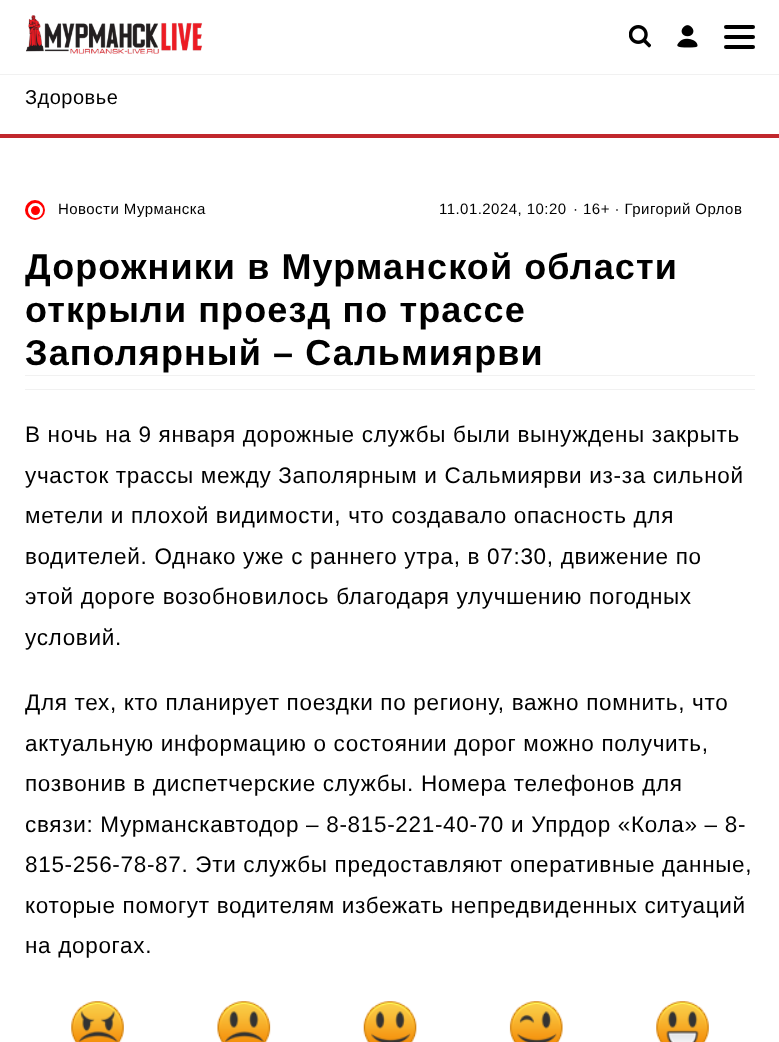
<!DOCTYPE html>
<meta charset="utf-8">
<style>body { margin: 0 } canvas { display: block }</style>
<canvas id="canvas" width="779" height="1042"></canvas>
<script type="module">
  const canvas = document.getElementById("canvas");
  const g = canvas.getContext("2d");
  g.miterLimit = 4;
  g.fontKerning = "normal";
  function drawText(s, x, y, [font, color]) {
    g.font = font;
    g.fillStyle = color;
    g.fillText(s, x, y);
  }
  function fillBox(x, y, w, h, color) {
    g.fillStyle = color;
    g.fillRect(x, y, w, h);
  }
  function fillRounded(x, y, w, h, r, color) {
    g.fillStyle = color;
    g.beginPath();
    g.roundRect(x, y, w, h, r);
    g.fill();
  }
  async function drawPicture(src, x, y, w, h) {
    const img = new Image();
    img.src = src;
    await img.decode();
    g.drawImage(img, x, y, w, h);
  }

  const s1 = ["20px Liberation Sans", "#000000"];
  const s2 = ["15px Liberation Sans", "#000000"];
  const s3 = ["bold 36px Liberation Sans", "#000000"];
  const s4 = ["22.5px Liberation Sans", "#000000"];

  fillBox(0, 0, 779, 1042, "#FFFFFF");
  fillBox(0, 134, 779, 4, "#C1272D");
  await drawPicture("pic1.png", 26, 15, 177, 39);
  await drawPicture("pic2.png", 629, 25, 22, 23);
  await drawPicture("pic3.png", 677, 25, 21, 23);
  fillRounded(724, 25, 31, 4, 2, "#000000");
  fillRounded(724, 35, 31, 4, 2, "#000000");
  fillRounded(724, 45, 31, 4, 2, "#000000");
  fillBox(0, 74, 779, 1, "#F1F1F1");
  g.letterSpacing = "0.5px";
  drawText("Здоровье", 25, 104, s1);
  g.fillStyle = "#FF0000";
  g.beginPath();
  g.arc(35, 210, 10, 0, Math.PI * 2);
  g.fill();
  g.beginPath();
  g.arc(35.5, 210.5, 6, 0, Math.PI * 2);
  g.strokeStyle = "#FFFFFF";
  g.lineWidth = 3;
  g.stroke();
  g.letterSpacing = "0.45px";
  drawText("Новости Мурманска", 58, 214, s2);
  drawText("11.01.2024, 10:20", 439, 214, s2);
  drawText("· 16+ · Григорий Орлов", 573, 214, s2);
  g.letterSpacing = "1.1px";
  drawText("Дорожники в Мурманской области", 25, 279, s3);
  drawText("открыли проезд по трассе", 25, 322, s3);
  drawText("Заполярный – Сальмиярви", 25, 365, s3);
  fillBox(25, 375, 730, 1, "#F1F1F1");
  fillBox(25, 389, 730, 1, "#F1F1F1");
  g.letterSpacing = "0.68px";
  drawText("В ночь на 9 января дорожные службы были вынуждены закрыть", 25, 442, s4);
  drawText("участок трассы между Заполярным и Сальмиярви из-за сильной", 25, 483, s4);
  drawText("метели и плохой видимости, что создавало опасность для", 25, 523, s4);
  drawText("водителей. Однако уже с раннего утра, в 07:30, движение по", 25, 564, s4);
  drawText("этой дороге возобновилось благодаря улучшению погодных", 25, 604, s4);
  drawText("условий.", 25, 645, s4);
  drawText("Для тех, кто планирует поездки по региону, важно помнить, что", 25, 710, s4);
  drawText("актуальную информацию о состоянии дорог можно получить,", 25, 751, s4);
  drawText("позвонив в диспетчерские службы. Номера телефонов для", 25, 791, s4);
  drawText("связи: Мурманскавтодор – 8-815-221-40-70 и Упрдор «Кола» – 8-", 25, 832, s4);
  drawText("815-256-78-87. Эти службы предоставляют оперативные данные,", 25, 872, s4);
  drawText("которые помогут водителям избежать непредвиденных ситуаций", 25, 913, s4);
  drawText("на дорогах.", 25, 953, s4);
  await drawPicture("pic4.png", 71, 1001, 53, 41);
  await drawPicture("pic5.png", 217, 1001, 54, 41);
  await drawPicture("pic6.png", 363, 1001, 54, 41);
  await drawPicture("pic7.png", 509, 1001, 54, 41);
  await drawPicture("pic8.png", 656, 1001, 53, 41);
</script>
